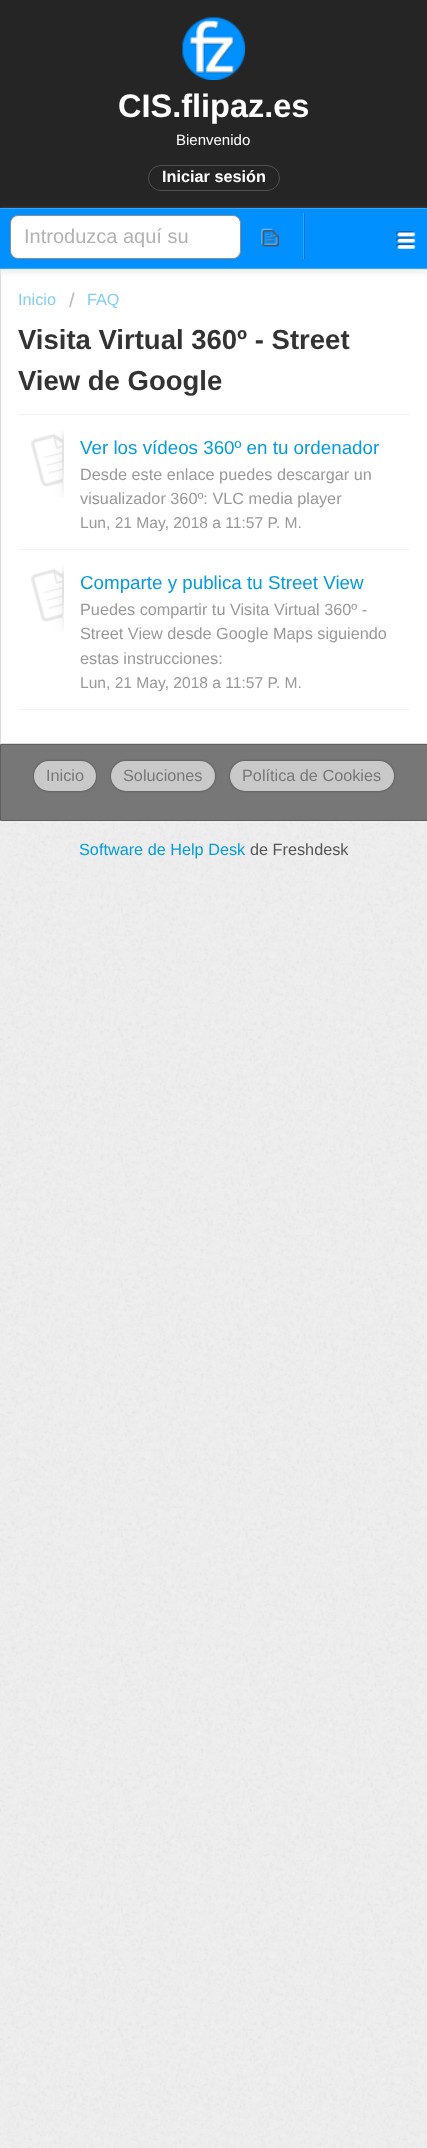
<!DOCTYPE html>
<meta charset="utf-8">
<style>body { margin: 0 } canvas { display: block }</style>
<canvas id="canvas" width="427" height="2148"></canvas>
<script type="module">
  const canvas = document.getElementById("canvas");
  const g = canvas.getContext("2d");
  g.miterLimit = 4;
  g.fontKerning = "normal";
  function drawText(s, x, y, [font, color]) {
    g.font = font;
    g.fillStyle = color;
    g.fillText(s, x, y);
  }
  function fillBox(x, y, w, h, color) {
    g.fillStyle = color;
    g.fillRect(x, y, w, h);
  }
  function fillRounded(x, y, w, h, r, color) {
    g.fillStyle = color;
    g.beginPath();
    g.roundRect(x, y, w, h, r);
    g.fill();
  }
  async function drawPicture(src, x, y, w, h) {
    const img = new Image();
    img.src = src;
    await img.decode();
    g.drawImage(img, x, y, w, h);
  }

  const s1 = ["bold 32.5px Liberation Sans", "#FFFFFF"];
  const s2 = ["15px Liberation Sans", "#FFFFFF"];
  const s3 = ["bold 16.25px Liberation Sans", "#FFFFFF"];
  const s4 = ["20px Liberation Sans", "#B2B2B2"];
  const s5 = ["16.25px Liberation Sans", "#82CEED"];
  const s6 = ["20px Liberation Sans", "#BBBBBB"];
  const s7 = ["bold 27.5px Liberation Sans", "#333333"];
  const s8 = ["18.8px Liberation Sans", "#049CDB"];
  const s9 = ["16.25px Liberation Sans", "#999999"];
  const s10 = ["15.6px Liberation Sans", "#999999"];
  const s11 = ["16.25px Liberation Sans", "#777777"];
  const s12 = ["16.25px Liberation Sans", "#049CDB"];
  const s13 = ["16.25px Liberation Sans", "#555555"];

  fillBox(0, 0, 427, 2148, "#EFEFEF");
  await drawPicture("pic1.png", 0, 821, 427, 1327);
  fillBox(0, 0, 427, 208, "#252525");
  await drawPicture("pic2.png", 182, 17, 63, 63);
  drawText("CIS.flipaz.es", 118, 117, s1);
  drawText("Bienvenido", 176, 145, s2);
  g.beginPath();
  g.roundRect(148.5, 165.5, 131, 25, 12.5);
  g.strokeStyle = "#515151";
  g.stroke();
  drawText("Iniciar sesión", 162, 182, s3);
  g.beginPath();
  g.rect(0.5, 269.5, 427, 474);
  g.fill();
  g.strokeStyle = "#DCDCDC";
  g.stroke();
  g.fillStyle = "#EEEEEE";
  g.filter = "blur(2.5px)";
  g.beginPath();
  g.rect(0, 211, 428, 62);
  g.fill();
  g.filter = "none";
  fillBox(0, 209, 427, 59, "#0090FF");
  fillBox(0, 208, 427, 1, "#33A6FF");
  fillBox(0, 268, 427, 1, "#33A6FF");
  await drawPicture("pic3.png", 396, 231, 20, 18);
  g.fillStyle = "#FFFFFF";
  g.beginPath();
  g.roundRect(10.5, 215.5, 230, 43, 7.5);
  g.fill();
  g.strokeStyle = "#8C8C8C";
  g.stroke();
  drawText("Introduzca aquí su", 24, 243, s4);
  g.fillStyle = "#0073CC";
  g.beginPath();
  g.moveTo(239, 259);
  g.lineTo(305, 259);
  g.lineTo(305, 213);
  g.lineTo(304, 213);
  g.lineTo(304, 259);
  g.closePath();
  g.fill();
  fillBox(303, 213, 1, 46, "#33A6FF");
  await drawPicture("pic4.png", 261, 228, 18, 19);
  drawText("Inicio", 18, 305, s5);
  drawText("/", 69, 307, s6);
  drawText("FAQ", 87, 305, s5);
  drawText("Visita Virtual 360º - Street", 18, 349, s7);
  drawText("View de Google", 18, 390, s7);
  fillBox(18, 709, 392, 1, "#F3F3F3");
  fillBox(18, 414, 392, 1, "#F3F3F3");
  await drawPicture("pic5.png", 31, 430, 33, 67);
  drawText("Ver los vídeos 360º en tu ordenador", 80, 454, s8);
  drawText("Desde este enlace puedes descargar un", 80, 480, s9);
  drawText("visualizador 360º: VLC media player", 80, 504, s9);
  drawText("Lun, 21 May, 2018 a 11:57 P. M.", 80, 528, s10);
  fillBox(18, 549, 392, 1, "#F3F3F3");
  await drawPicture("pic6.png", 31, 565, 33, 67);
  drawText("Comparte y publica tu Street View", 80, 589, s8);
  drawText("Puedes compartir tu Visita Virtual 360º -", 80, 615, s9);
  drawText("Street View desde Google Maps siguiendo", 80, 639, s9);
  drawText("estas instrucciones:", 80, 664, s9);
  drawText("Lun, 21 May, 2018 a 11:57 P. M.", 80, 688, s10);
  g.fillStyle = "#777777";
  g.beginPath();
  g.rect(0.5, 744.5, 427, 76);
  g.fill();
  g.strokeStyle = "#5E5E5E";
  g.stroke();
  g.fillStyle = "#494949";
  g.filter = "blur(1px)";
  g.beginPath();
  g.roundRect(34, 761, 62, 30, 15);
  g.fill();
  g.filter = "none";
  fillRounded(34, 761, 62, 30, 15, "#C9C9C9");
  drawText("Inicio", 46, 781, s11);
  g.fillStyle = "#494949";
  g.filter = "blur(1px)";
  g.beginPath();
  g.roundRect(111, 761, 104, 30, 15);
  g.fill();
  g.filter = "none";
  fillRounded(111, 761, 104, 30, 15, "#C9C9C9");
  drawText("Soluciones", 123, 781, s11);
  g.fillStyle = "#494949";
  g.filter = "blur(1px)";
  g.beginPath();
  g.roundRect(230, 761, 164, 30, 15);
  g.fill();
  g.filter = "none";
  fillRounded(230, 761, 164, 30, 15, "#C9C9C9");
  drawText("Política de Cookies", 242, 781, s11);
  drawText("Software de Help Desk", 79, 855, s12);
  drawText("de Freshdesk", 250, 855, s13);
</script>
